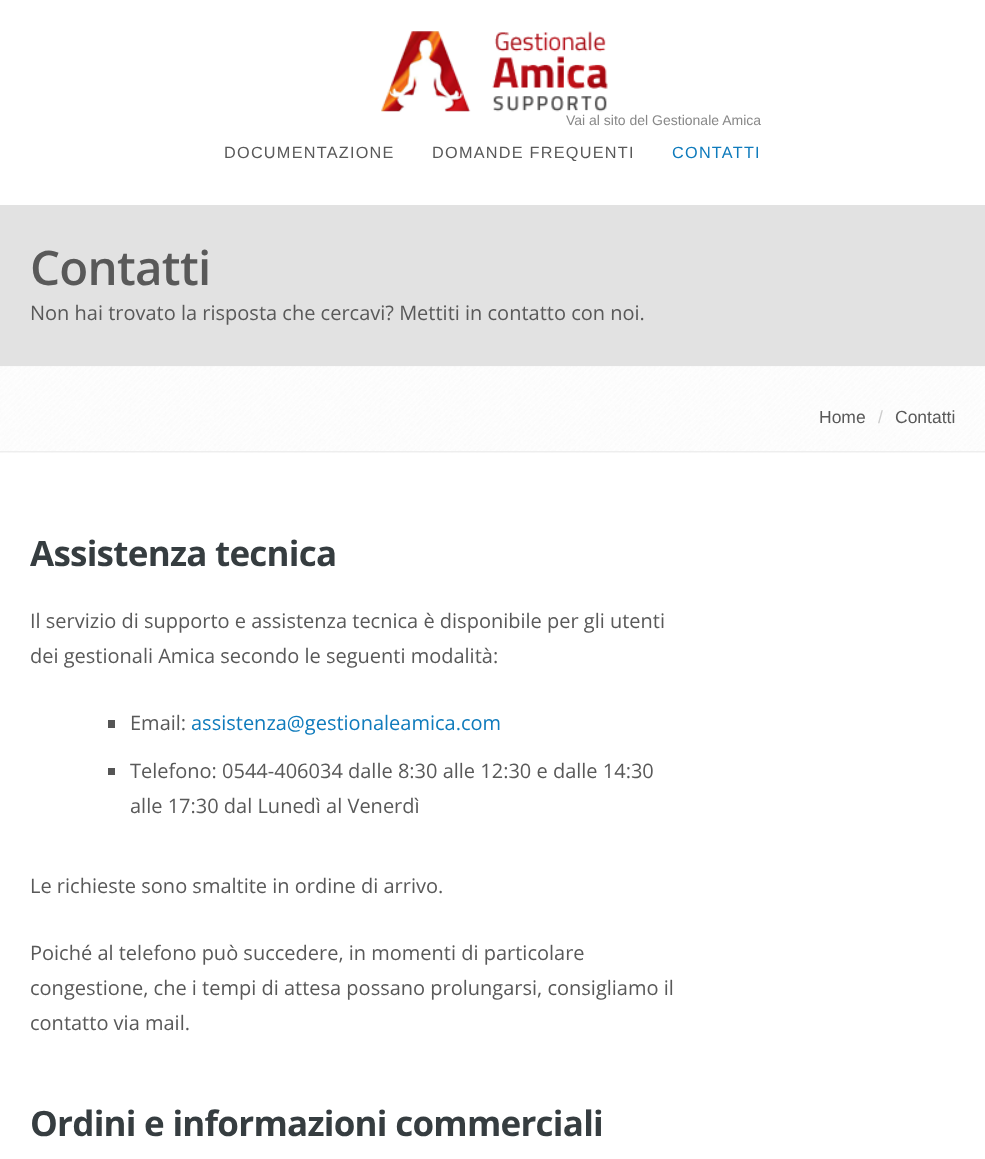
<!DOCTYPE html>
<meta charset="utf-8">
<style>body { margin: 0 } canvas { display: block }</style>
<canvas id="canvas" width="985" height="1159"></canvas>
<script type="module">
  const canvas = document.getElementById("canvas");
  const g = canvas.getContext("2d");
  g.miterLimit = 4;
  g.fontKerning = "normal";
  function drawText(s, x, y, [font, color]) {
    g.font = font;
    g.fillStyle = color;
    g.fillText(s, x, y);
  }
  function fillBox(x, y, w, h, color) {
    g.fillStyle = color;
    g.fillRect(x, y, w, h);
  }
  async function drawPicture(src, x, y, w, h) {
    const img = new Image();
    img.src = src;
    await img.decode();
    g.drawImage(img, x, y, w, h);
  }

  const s1 = ["14px Liberation Sans", "#888888"];
  const s2 = ["16.25px Liberation Sans", "#595959"];
  const s3 = ["16.25px Liberation Sans", "#0F7BBC"];
  const s4 = ["600 47.5px Open Sans", "#595959"];
  const s5 = ["20px Open Sans", "#595959"];
  const s6 = ["17.5px Liberation Sans", "#595959"];
  const s7 = ["17.5px Liberation Sans", "#CCCCCC"];
  const s8 = ["bold 35px Open Sans", "#363D40"];
  const s9 = ["20px Open Sans", "#0F7BBC"];

  fillBox(0, 0, 985, 1159, "#FFFFFF");
  await drawPicture("pic1.png", 381, 31, 227, 81);
  drawText("Vai al sito del Gestionale Amica", 566, 125, s1);
  g.letterSpacing = "1.25px";
  drawText("DOCUMENTAZIONE", 224, 158, s2);
  drawText("DOMANDE FREQUENTI", 432, 158, s2);
  drawText("CONTATTI", 672, 158, s3);
  fillBox(0, 205, 985, 161, "#E2E2E2");
  g.letterSpacing = "-0.75px";
  drawText("Contatti", 30, 285, s4);
  g.letterSpacing = "0px";
  drawText("Non hai trovato la risposta che cercavi? Mettiti in contatto con noi.", 30, 320, s5);
  fillBox(0, 366, 985, 87, "#F0F0F0");
  await drawPicture("pic2.png", 0, 366, 985, 87);
  fillBox(0, 451, 985, 1, "#EEEEEE");
  drawText("Home", 819, 423, s6);
  drawText("/", 878, 423, s7);
  drawText("Contatti", 895, 423, s6);
  g.letterSpacing = "-0.75px";
  drawText("Assistenza tecnica", 30, 566, s8);
  g.letterSpacing = "0px";
  drawText("Il servizio di supporto e assistenza tecnica è disponibile per gli utenti", 30, 628, s5);
  drawText("dei gestionali Amica secondo le seguenti modalità:", 30, 663, s5);
  fillBox(108, 720, 7, 8, "#555555");
  drawText("Email:", 130, 730, s5);
  drawText("assistenza@gestionaleamica.com", 191, 730, s9);
  fillBox(108, 768, 7, 7, "#555555");
  drawText("Telefono: 0544-406034 dalle 8:30 alle 12:30 e dalle 14:30", 130, 778, s5);
  drawText("alle 17:30 dal Lunedì al Venerdì", 130, 813, s5);
  drawText("Le richieste sono smaltite in ordine di arrivo.", 30, 893, s5);
  drawText("Poiché al telefono può succedere, in momenti di particolare", 30, 960, s5);
  drawText("congestione, che i tempi di attesa possano prolungarsi, consigliamo il", 30, 995, s5);
  drawText("contatto via mail.", 30, 1030, s5);
  g.letterSpacing = "-0.75px";
  drawText("Ordini e informazioni commerciali", 30, 1136, s8);
</script>
